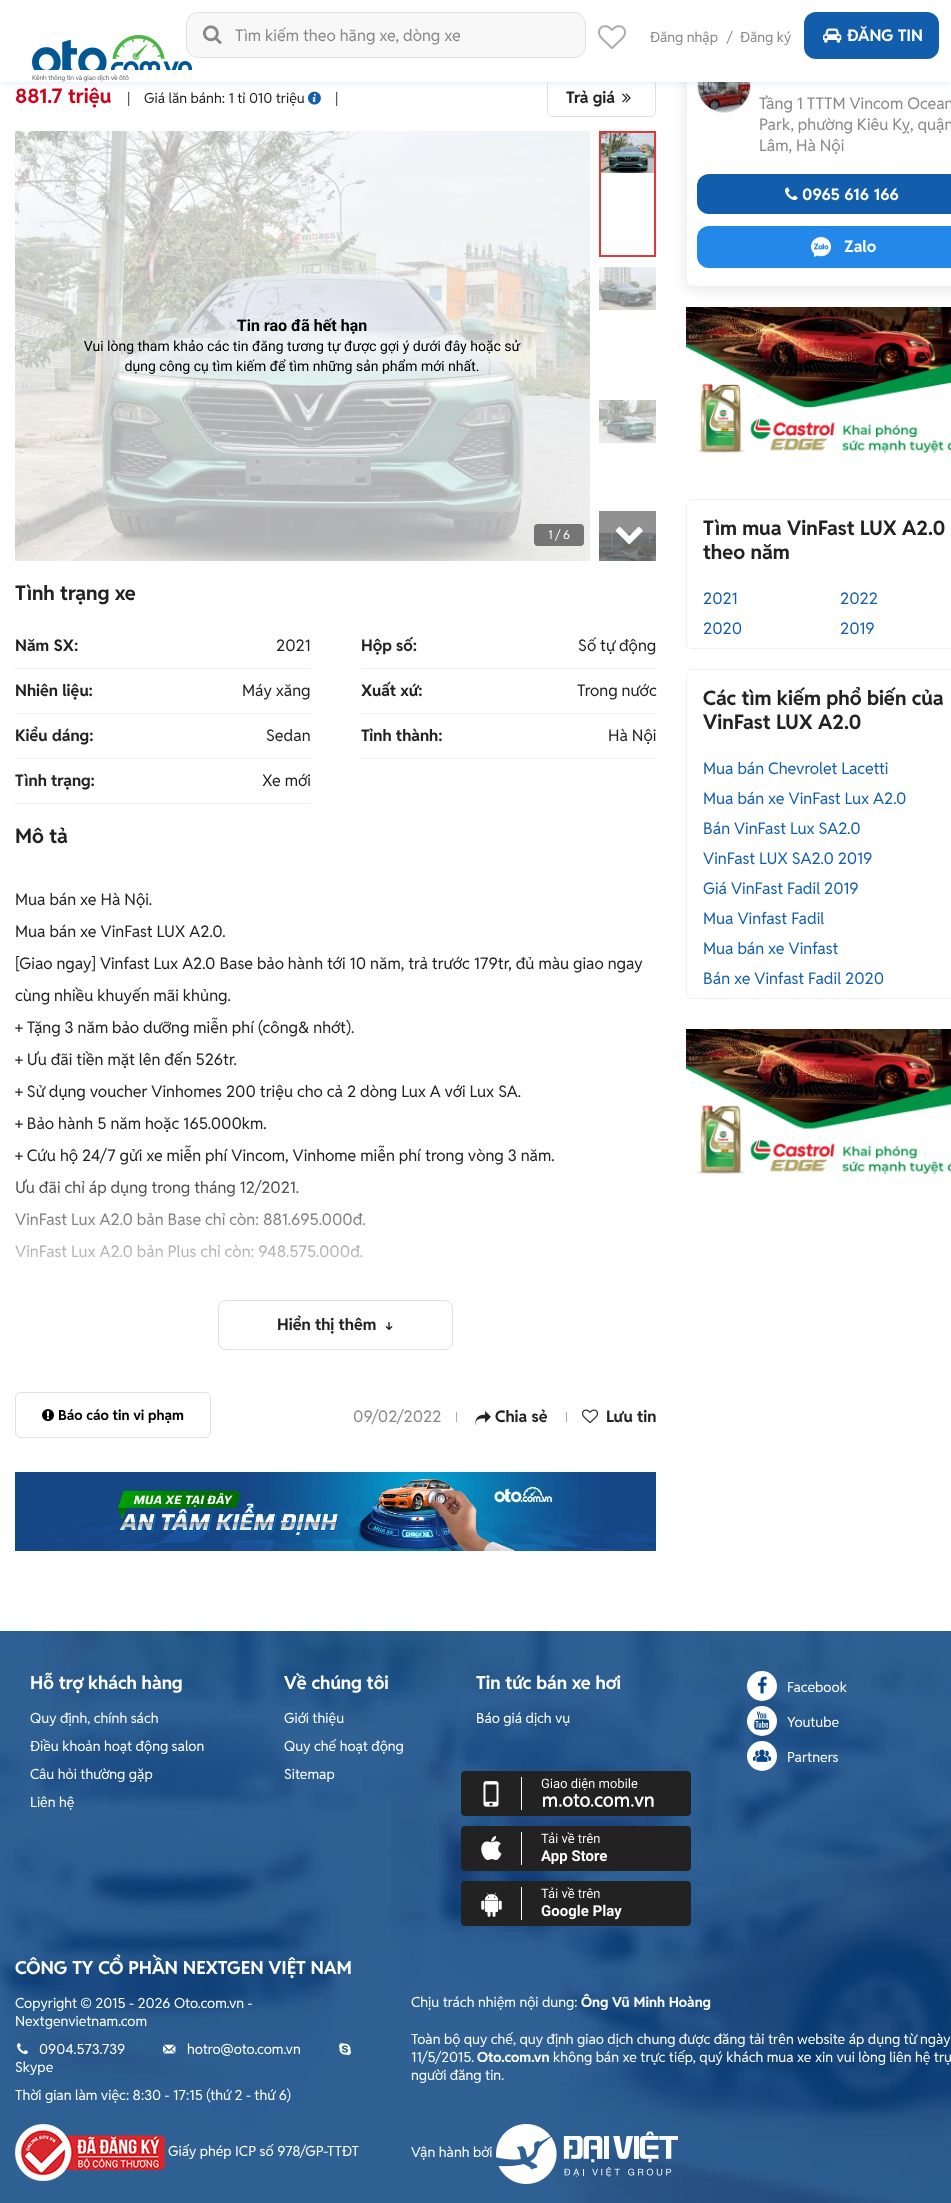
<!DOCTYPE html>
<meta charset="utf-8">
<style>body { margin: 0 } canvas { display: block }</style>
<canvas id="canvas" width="951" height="2203"></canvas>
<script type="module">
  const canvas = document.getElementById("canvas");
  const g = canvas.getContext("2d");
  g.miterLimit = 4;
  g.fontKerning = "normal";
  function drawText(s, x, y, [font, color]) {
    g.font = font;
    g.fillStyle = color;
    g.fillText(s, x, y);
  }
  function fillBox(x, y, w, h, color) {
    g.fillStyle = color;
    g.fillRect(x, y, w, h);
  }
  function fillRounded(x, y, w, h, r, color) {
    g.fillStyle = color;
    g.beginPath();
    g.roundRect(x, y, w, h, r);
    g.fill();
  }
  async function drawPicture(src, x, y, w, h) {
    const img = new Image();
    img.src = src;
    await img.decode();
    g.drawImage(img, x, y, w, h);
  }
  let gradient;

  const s1 = ["16px Reddit Sans", "#888888"];
  const s2 = ["14px Reddit Sans", "#888888"];
  const s3 = ["bold 16px Reddit Sans", "#FFFFFF"];
  const s4 = ["6.6px Reddit Sans", "#646464"];
  const s5 = ["bold 20px Reddit Sans", "#D0011B"];
  const s6 = ["14px Reddit Sans", "#222222"];
  const s7 = ["bold 16px Reddit Sans", "#222222"];
  const s8 = ["12px Reddit Sans", "#FFFFFF"];
  const s9 = ["bold 20px Reddit Sans", "#222222"];
  const s10 = ["16px Reddit Sans", "#222222"];
  const s11 = ["bold 14px Reddit Sans", "#000000"];
  const s12 = ["16px Reddit Sans", "#135EAC"];
  const s13 = ["bold 18px Reddit Sans", "#FFFFFF"];
  const s14 = ["14px Reddit Sans", "#FFFFFF"];
  const s15 = ["bold 14px Reddit Sans", "#FFFFFF"];

  fillBox(0, 0, 951, 2203, "#FFFFFF");
  fillBox(599, 511, 57, 50, "#919191");
  await drawPicture("pic5.png", 308, 91, 13, 14);
  g.beginPath();
  g.roundRect(547.5, 78.5, 108, 38, 5.5);
  g.strokeStyle = "#E1E1E1";
  g.stroke();
  await drawPicture("pic6.png", 622, 93, 9, 10);
  await drawPicture("pic22.png", 686, 307, 265, 147);
  g.fillStyle = "rgba(0, 0, 0, 0.1)";
  g.filter = "blur(7.5px)";
  g.beginPath();
  g.roundRect(686, 50, 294, 239, 6);
  g.fill();
  g.filter = "none";
  g.fillStyle = "#FFFFFF";
  g.beginPath();
  g.roundRect(686.5, 48.5, 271, 238, 5.5);
  g.fill();
  g.strokeStyle = "#F0F0F0";
  g.stroke();
  g.beginPath();
  g.arc(724, 86, 26.5, 0, Math.PI * 2);
  g.strokeStyle = "#E1E1E1";
  g.stroke();
  await drawPicture("pic19.png", 698, 82, 52, 30);
  g.fillStyle = "rgba(19, 94, 172, 0.1)";
  g.filter = "blur(3px)";
  g.beginPath();
  g.rect(0, 2, 951, 82);
  g.fill();
  g.filter = "none";
  fillBox(0, 0, 951, 82, "#FFFFFF");
  await drawPicture("pic4.png", 32, 35, 160, 35);
  g.fillStyle = "#F8F8F8";
  g.beginPath();
  g.roundRect(186.5, 12.5, 399, 45, 11.5);
  g.fill();
  g.stroke();
  await drawPicture("pic1.png", 203, 25, 19, 19);
  drawText("Tìm kiếm theo hãng xe, dòng xe", 235, 41, s1);
  await drawPicture("pic2.png", 598, 25, 28, 25);
  drawText("Đăng nhập", 650, 42, s2);
  drawText("/", 727, 42, s2);
  drawText("Đăng ký", 740, 42, s2);
  fillRounded(804, 12, 135, 47, 12, "#135EAC");
  await drawPicture("pic3.png", 823, 28, 19, 15);
  drawText("ĐĂNG TIN", 847, 41, s3);
  g.letterSpacing = "-0.1px";
  drawText("Kênh thông tin và giao dịch về ôtô", 32, 80, s4);
  g.letterSpacing = "0px";
  drawText("881.7 triệu", 15, 103, s5);
  drawText("|", 127, 103, s6);
  drawText("Giá lăn bánh: 1 tỉ 010 triệu", 144, 103, s6);
  drawText("|", 335, 103, s6);
  drawText("Trả giá", 566, 103, s7);
  await drawPicture("pic7.png", 15, 131, 575, 430);
  await drawPicture("pic8.png", 75, 298, 446, 100);
  fillRounded(534, 524, 50, 22, 4, "rgba(0, 0, 0, 0.5)");
  drawText("1 / 6", 548, 539, s8);
  g.strokeStyle = "#E23838";
  g.lineWidth = 2;
  g.strokeRect(600, 132, 55, 124);
  await drawPicture("pic9.png", 601, 133, 53, 40);
  await drawPicture("pic10.png", 599, 267, 57, 43);
  await drawPicture("pic11.png", 599, 400, 57, 43);
  await drawPicture("pic12.png", 599, 533, 57, 28);
  await drawPicture("pic13.png", 615, 526, 28, 19);
  drawText("Tình trạng xe", 15, 600, s9);
  fillBox(15, 668, 296, 1, "#F0F0F0");
  drawText("Năm SX:", 15, 651, s7);
  drawText("2021", 276, 651, s10);
  fillBox(15, 713, 296, 1, "#F0F0F0");
  drawText("Nhiên liệu:", 15, 696, s7);
  drawText("Máy xăng", 242, 696, s10);
  fillBox(15, 758, 296, 1, "#F0F0F0");
  drawText("Kiểu dáng:", 15, 741, s7);
  drawText("Sedan", 266, 741, s10);
  fillBox(15, 803, 296, 1, "#F0F0F0");
  drawText("Tình trạng:", 15, 786, s7);
  drawText("Xe mới", 262, 786, s10);
  fillBox(361, 668, 295, 1, "#F0F0F0");
  drawText("Hộp số:", 361, 651, s7);
  drawText("Số tự động", 578, 651, s10);
  fillBox(361, 713, 295, 1, "#F0F0F0");
  drawText("Xuất xứ:", 361, 696, s7);
  drawText("Trong nước", 577, 696, s10);
  fillBox(361, 758, 295, 1, "#F0F0F0");
  drawText("Tỉnh thành:", 361, 741, s7);
  drawText("Hà Nội", 608, 741, s10);
  drawText("Mô tả", 15, 843, s9);
  drawText("Mua bán xe Hà Nội.", 15, 905, s10);
  drawText("Mua bán xe VinFast LUX A2.0.", 15, 937, s10);
  drawText("[Giao ngay] Vinfast Lux A2.0 Base bảo hành tới 10 năm, trả trước 179tr, đủ màu giao ngay", 15, 969, s10);
  drawText("cùng nhiều khuyến mãi khủng.", 15, 1001, s10);
  drawText("+ Tặng 3 năm bảo dưỡng miễn phí (công& nhớt).", 15, 1033, s10);
  drawText("+ Ưu đãi tiền mặt lên đến 526tr.", 15, 1065, s10);
  drawText("+ Sử dụng voucher Vinhomes 200 triệu cho cả 2 dòng Lux A với Lux SA.", 15, 1097, s10);
  drawText("+ Bảo hành 5 năm hoặc 165.000km.", 15, 1129, s10);
  drawText("+ Cứu hộ 24/7 gửi xe miễn phí Vincom, Vinhome miễn phí trong vòng 3 năm.", 15, 1161, s10);
  drawText("Ưu đãi chỉ áp dụng trong tháng 12/2021.", 15, 1193, s10);
  drawText("VinFast Lux A2.0 bản Base chỉ còn: 881.695.000đ.", 15, 1225, s10);
  drawText("VinFast Lux A2.0 bản Plus chỉ còn: 948.575.000đ.", 15, 1257, s10);
  gradient = g.createLinearGradient(336, 1160, 336, 1300);
  gradient.addColorStop(0, "rgba(255, 255, 255, 0)");
  gradient.addColorStop(1, "#FFFFFF");
  g.fillStyle = gradient;
  g.fillRect(15, 1163, 486, 95);
  g.beginPath();
  g.roundRect(218.5, 1300.5, 234, 49, 7.5);
  g.strokeStyle = "#E1E1E1";
  g.lineWidth = 1;
  g.stroke();
  drawText("Hiển thị thêm", 277, 1330, s7);
  await drawPicture("pic14.png", 385, 1322, 8, 9);
  g.beginPath();
  g.roundRect(15.5, 1392.5, 195, 45, 5.5);
  g.stroke();
  await drawPicture("pic15.png", 42, 1409, 12, 13);
  drawText("Báo cáo tin vi phạm", 58, 1420, s11);
  drawText("09/02/2022", 353, 1422, s1);
  fillBox(456, 1412, 1, 10, "#ACACAC");
  await drawPicture("pic16.png", 475, 1411, 16, 15);
  drawText("Chia sẻ", 495, 1422, s7);
  fillBox(566, 1412, 1, 10, "#ACACAC");
  await drawPicture("pic17.png", 582, 1409, 16, 15);
  drawText("Lưu tin", 606, 1422, s7);
  await drawPicture("pic18.png", 15, 1472, 641, 79);
  drawText("Tầng 1 TTTM Vincom Ocean", 759, 109, s1);
  drawText("Park, phường Kiêu Kỵ, quận", 759, 130, s1);
  drawText("Lâm, Hà Nội", 759, 151, s1);
  fillRounded(697, 174, 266, 40, 12, "#135EAC");
  await drawPicture("pic20.png", 785, 187, 13, 14);
  drawText("0965 616 166", 802, 200, s3);
  fillRounded(697, 226, 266, 42, 12, "#2388E7");
  await drawPicture("pic21.png", 811, 237, 20, 20);
  drawText("Zalo", 844, 252, s3);
  g.fillStyle = "#F0F0F0";
  g.beginPath();
  g.moveTo(692, 499);
  g.lineTo(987, 499);
  g.bezierCurveTo(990, 499, 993, 502, 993, 505);
  g.lineTo(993, 580);
  g.lineTo(686, 580);
  g.lineTo(686, 505);
  g.bezierCurveTo(686, 502, 689, 499, 692, 499);
  g.closePath();
  g.moveTo(692, 500);
  g.lineTo(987, 500);
  g.bezierCurveTo(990, 500, 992, 502, 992, 505);
  g.lineTo(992, 580);
  g.lineTo(687, 580);
  g.lineTo(687, 505);
  g.bezierCurveTo(687, 502, 689, 500, 692, 500);
  g.closePath();
  g.fill("evenodd");
  drawText("Tìm mua VinFast LUX A2.0", 703, 535, s9);
  drawText("theo năm", 703, 559, s9);
  g.fillStyle = "#F0F0F0";
  g.beginPath();
  g.moveTo(686, 580);
  g.lineTo(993, 580);
  g.lineTo(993, 643);
  g.bezierCurveTo(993, 646, 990, 649, 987, 649);
  g.lineTo(692, 649);
  g.bezierCurveTo(689, 649, 686, 646, 686, 643);
  g.closePath();
  g.moveTo(687, 580);
  g.lineTo(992, 580);
  g.lineTo(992, 643);
  g.bezierCurveTo(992, 646, 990, 648, 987, 648);
  g.lineTo(692, 648);
  g.bezierCurveTo(689, 648, 687, 646, 687, 643);
  g.closePath();
  g.fill("evenodd");
  drawText("2021", 703, 604, s12);
  drawText("2022", 840, 604, s12);
  drawText("2020", 703, 634, s12);
  drawText("2019", 840, 634, s12);
  g.fillStyle = "#F0F0F0";
  g.beginPath();
  g.moveTo(692, 669);
  g.lineTo(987, 669);
  g.bezierCurveTo(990, 669, 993, 672, 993, 675);
  g.lineTo(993, 750);
  g.lineTo(686, 750);
  g.lineTo(686, 675);
  g.bezierCurveTo(686, 672, 689, 669, 692, 669);
  g.closePath();
  g.moveTo(692, 670);
  g.lineTo(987, 670);
  g.bezierCurveTo(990, 670, 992, 672, 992, 675);
  g.lineTo(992, 750);
  g.lineTo(687, 750);
  g.lineTo(687, 675);
  g.bezierCurveTo(687, 672, 689, 670, 692, 670);
  g.closePath();
  g.fill("evenodd");
  drawText("Các tìm kiếm phổ biến của", 703, 705, s9);
  drawText("VinFast LUX A2.0", 703, 729, s9);
  g.fillStyle = "#F0F0F0";
  g.beginPath();
  g.moveTo(686, 750);
  g.lineTo(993, 750);
  g.lineTo(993, 993);
  g.bezierCurveTo(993, 996, 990, 999, 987, 999);
  g.lineTo(692, 999);
  g.bezierCurveTo(689, 999, 686, 996, 686, 993);
  g.closePath();
  g.moveTo(687, 750);
  g.lineTo(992, 750);
  g.lineTo(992, 993);
  g.bezierCurveTo(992, 996, 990, 998, 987, 998);
  g.lineTo(692, 998);
  g.bezierCurveTo(689, 998, 687, 996, 687, 993);
  g.closePath();
  g.fill("evenodd");
  drawText("Mua bán Chevrolet Lacetti", 703, 774, s12);
  drawText("Mua bán xe VinFast Lux A2.0", 703, 804, s12);
  drawText("Bán VinFast Lux SA2.0", 703, 834, s12);
  drawText("VinFast LUX SA2.0 2019", 703, 864, s12);
  drawText("Giá VinFast Fadil 2019", 703, 894, s12);
  drawText("Mua Vinfast Fadil", 703, 924, s12);
  drawText("Mua bán xe Vinfast", 703, 954, s12);
  drawText("Bán xe Vinfast Fadil 2020", 703, 984, s12);
  await drawPicture("pic23.png", 686, 1029, 265, 146);
  await drawPicture("pic24.png", 0, 1631, 951, 572);
  drawText("Hỗ trợ khách hàng", 30, 1689, s13);
  drawText("Quy định, chính sách", 30, 1723, s14);
  drawText("Điều khoản hoạt động salon", 30, 1751, s14);
  drawText("Câu hỏi thường gặp", 30, 1779, s14);
  drawText("Liên hệ", 30, 1807, s14);
  drawText("Về chúng tôi", 284, 1689, s13);
  drawText("Giới thiệu", 284, 1723, s14);
  drawText("Quy chế hoạt động", 284, 1751, s14);
  drawText("Sitemap", 284, 1779, s14);
  drawText("Tin tức bán xe hơi", 476, 1689, s13);
  drawText("Báo giá dịch vụ", 476, 1723, s14);
  g.beginPath();
  g.arc(762, 1686, 15, 0, Math.PI * 2);
  g.fill();
  await drawPicture("pic25.png", 757, 1676, 10, 18);
  drawText("Facebook", 787, 1692, s14);
  g.beginPath();
  g.arc(762, 1721, 15, 0, Math.PI * 2);
  g.fill();
  await drawPicture("pic26.png", 754, 1711, 16, 19);
  drawText("Youtube", 787, 1727, s14);
  g.beginPath();
  g.arc(762, 1756, 15, 0, Math.PI * 2);
  g.fill();
  await drawPicture("pic27.png", 753, 1749, 18, 13);
  drawText("Partners", 787, 1762, s14);
  await drawPicture("pic28.png", 461, 1771, 230, 45);
  await drawPicture("pic29.png", 461, 1826, 230, 45);
  await drawPicture("pic30.png", 461, 1881, 230, 45);
  drawText("CÔNG TY CỔ PHẦN NEXTGEN VIỆT NAM", 15, 1974, s13);
  drawText("Copyright © 2015 - 2026 Oto.com.vn -", 15, 2008, s14);
  drawText("Nextgenvietnam.com", 15, 2026, s14);
  await drawPicture("pic31.png", 17, 2043, 11, 12);
  drawText("0904.573.739", 39, 2054, s14);
  await drawPicture("pic32.png", 163, 2044, 13, 10);
  drawText("hotro@oto.com.vn", 187, 2054, s14);
  await drawPicture("pic33.png", 339, 2043, 12, 13);
  drawText("Skype", 15, 2072, s14);
  drawText("Thời gian làm việc: 8:30 - 17:15 (thứ 2 - thứ 6)", 15, 2100, s14);
  drawText("Chịu trách nhiệm nội dung:", 411, 2007, s14);
  drawText("Ông Vũ Minh Hoàng", 581, 2007, s15);
  drawText("Toàn bộ quy chế, quy định giao dịch chung được đăng tải trên website áp dụng từ ngày", 411, 2044, s14);
  drawText("11/5/2015.", 411, 2062, s14);
  drawText("Oto.com.vn", 477, 2062, s15);
  drawText("không bán xe trực tiếp, quý khách mua xe xin vui lòng liên hệ trự", 553, 2062, s14);
  drawText("người đăng tin.", 411, 2080, s14);
  await drawPicture("pic34.png", 15, 2124, 150, 57);
  drawText("Giấy phép ICP số 978/GP-TTĐT", 168, 2156, s14);
  drawText("Vận hành bởi", 411, 2157, s14);
  await drawPicture("pic35.png", 496, 2124, 182, 60);
</script>
